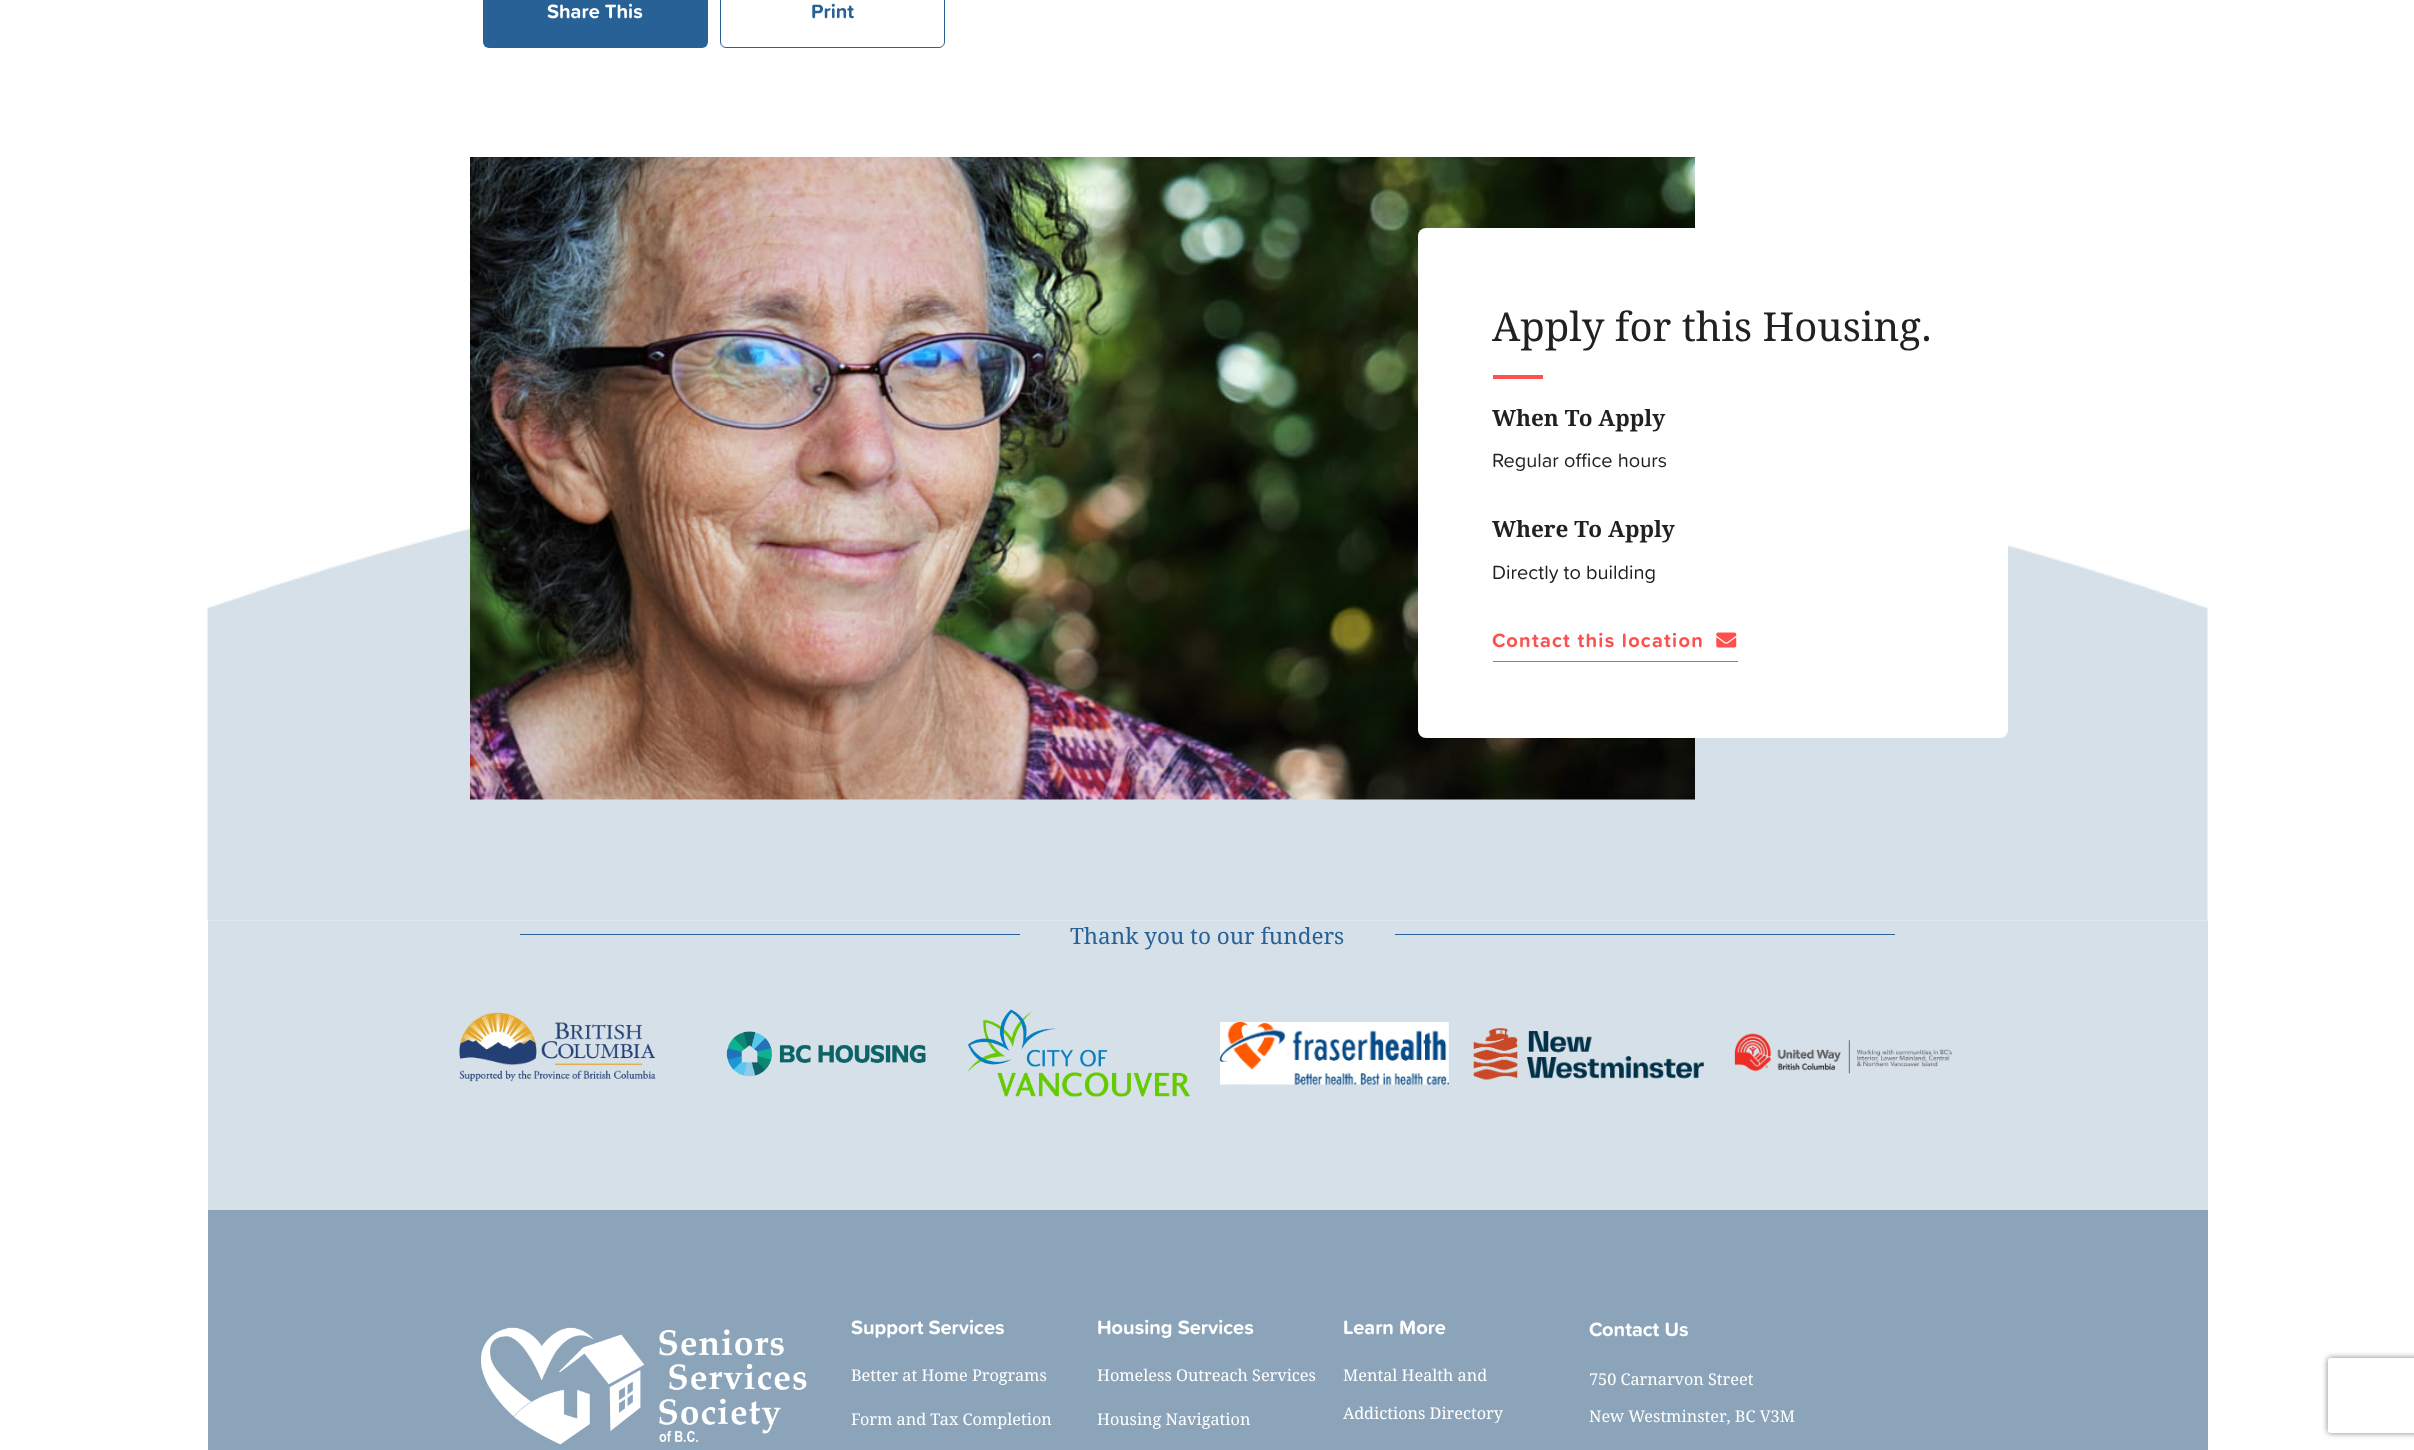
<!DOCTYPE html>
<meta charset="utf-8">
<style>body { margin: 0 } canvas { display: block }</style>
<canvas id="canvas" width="2414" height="1450"></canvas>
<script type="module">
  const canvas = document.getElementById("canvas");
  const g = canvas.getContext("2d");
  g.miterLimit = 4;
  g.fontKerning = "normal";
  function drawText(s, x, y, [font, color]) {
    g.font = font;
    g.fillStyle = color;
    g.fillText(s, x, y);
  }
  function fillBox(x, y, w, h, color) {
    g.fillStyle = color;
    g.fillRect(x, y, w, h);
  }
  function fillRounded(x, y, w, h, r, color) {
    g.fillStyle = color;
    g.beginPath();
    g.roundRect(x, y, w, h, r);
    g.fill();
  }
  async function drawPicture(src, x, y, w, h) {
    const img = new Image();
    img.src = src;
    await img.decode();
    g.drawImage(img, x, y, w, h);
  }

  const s1 = ["bold 20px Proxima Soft", "#FFFFFF"];
  const s2 = ["bold 20px Proxima Soft", "#276195"];
  const s3 = ["40px Droid Serif", "#212121"];
  const s4 = ["bold 22.5px Droid Serif", "#212121"];
  const s5 = ["20px Proxima Soft", "#212121"];
  const s6 = ["bold 20px Proxima Soft", "#FE504D"];
  const s7 = ["22.5px Droid Serif", "#276195"];
  const s8 = ["16.25px Droid Serif", "#FFFFFF"];

  fillBox(0, 0, 2414, 1450, "#FFFFFF");
  fillRounded(483, -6, 225, 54, 6, "#276195");
  drawText("Share This", 547, 18, s1);
  g.beginPath();
  g.roundRect(720.5, -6.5, 224, 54, 5.5);
  g.strokeStyle = "#276195";
  g.stroke();
  drawText("Print", 811, 18, s2);
  await drawPicture("pic3.png", 207, 433, 2001, 488);
  await drawPicture("pic1.png", 470, 157, 1225, 643);
  fillRounded(1418, 228, 590, 510, 8, "#FFFFFF");
  drawText("Apply for this Housing.", 1492, 341, s3);
  fillBox(1493, 375, 50, 4, "#FE504D");
  drawText("When To Apply", 1492, 426, s4);
  drawText("Regular office hours", 1492, 467, s5);
  drawText("Where To Apply", 1492, 537, s4);
  drawText("Directly to building", 1492, 579, s5);
  fillBox(1493, 661, 245, 1, "#FE504D");
  g.letterSpacing = "1.25px";
  drawText("Contact this location", 1492, 647, s6);
  await drawPicture("pic2.png", 1716, 632, 21, 16);
  fillBox(208, 921, 2000, 289, "#D6E0E8");
  fillBox(520, 934, 500, 1, "#276195");
  g.letterSpacing = "0px";
  drawText("Thank you to our funders", 1070, 944, s7);
  fillBox(1395, 934, 500, 1, "#276195");
  await drawPicture("pic4.png", 459, 1012, 197, 70);
  await drawPicture("pic5.png", 726, 1031, 200, 46);
  await drawPicture("pic6.png", 967, 1009, 223, 88);
  await drawPicture("pic7.png", 1220, 1022, 229, 63);
  await drawPicture("pic8.png", 1473, 1028, 231, 52);
  await drawPicture("pic9.png", 1734, 1033, 219, 41);
  fillBox(208, 1210, 2000, 240, "#8BA4BA");
  await drawPicture("pic10.png", 480, 1327, 327, 118);
  drawText("Support Services", 851, 1334, s1);
  drawText("Better at Home Programs", 851, 1381, s8);
  drawText("Form and Tax Completion", 851, 1425, s8);
  drawText("Housing Services", 1097, 1334, s1);
  drawText("Homeless Outreach Services", 1097, 1381, s8);
  drawText("Housing Navigation", 1097, 1425, s8);
  drawText("Learn More", 1343, 1334, s1);
  drawText("Mental Health and", 1343, 1381, s8);
  drawText("Addictions Directory", 1343, 1419, s8);
  drawText("Contact Us", 1589, 1336, s1);
  drawText("750 Carnarvon Street", 1589, 1385, s8);
  drawText("New Westminster, BC V3M", 1589, 1422, s8);
  g.save();
  g.beginPath();
  g.moveTo(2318, 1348);
  g.lineTo(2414, 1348);
  g.lineTo(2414, 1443);
  g.lineTo(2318, 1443);
  g.closePath();
  g.moveTo(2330.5, 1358);
  g.lineTo(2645.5, 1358);
  g.bezierCurveTo(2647, 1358, 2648, 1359, 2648, 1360.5);
  g.lineTo(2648, 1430.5);
  g.bezierCurveTo(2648, 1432, 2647, 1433, 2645.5, 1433);
  g.lineTo(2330.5, 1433);
  g.bezierCurveTo(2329, 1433, 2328, 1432, 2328, 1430.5);
  g.lineTo(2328, 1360.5);
  g.bezierCurveTo(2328, 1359, 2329, 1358, 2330.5, 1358);
  g.closePath();
  g.clip("evenodd");
  g.fillStyle = "#808080";
  g.filter = "blur(3px)";
  g.beginPath();
  g.roundRect(2328, 1358, 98, 75, 2.5);
  g.fill();
  g.filter = "none";
  g.restore();
</script>
